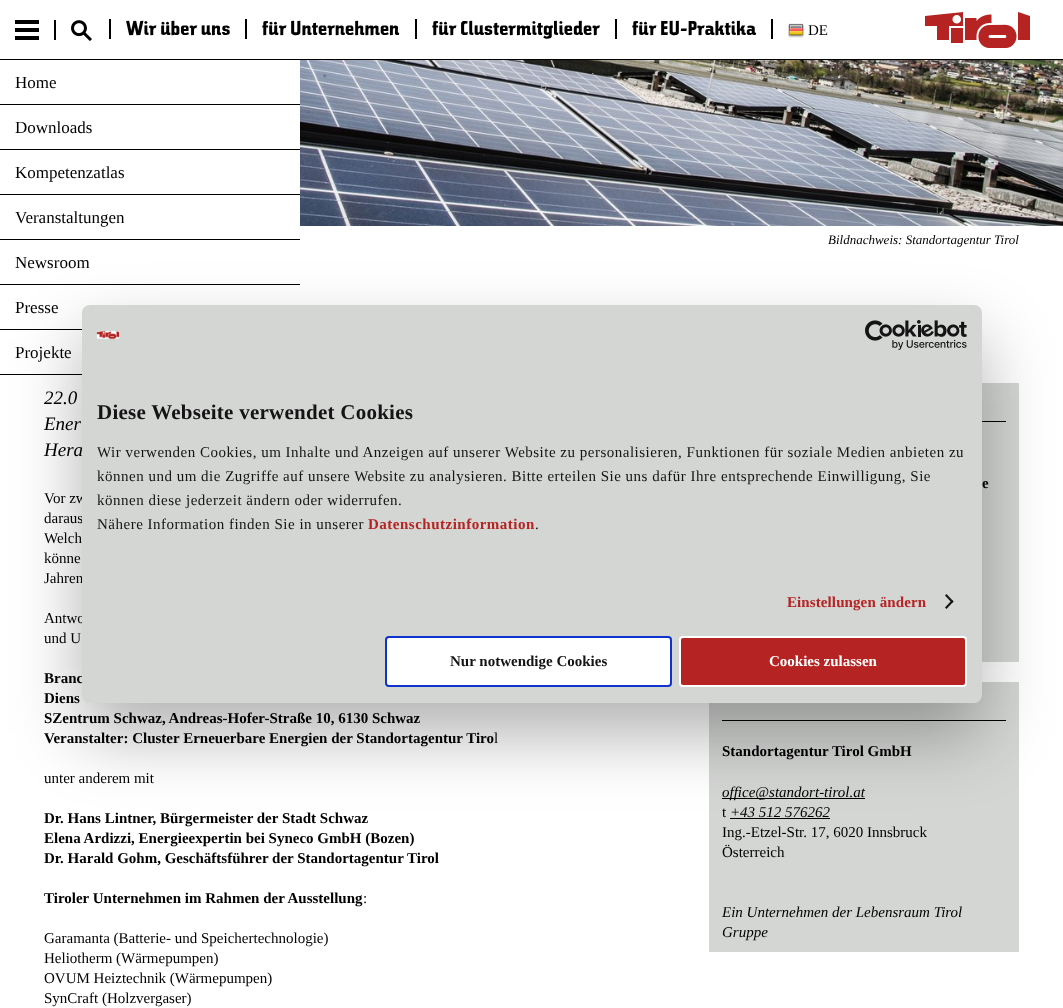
<!DOCTYPE html>
<meta charset="utf-8">
<style>body { margin: 0 } canvas { display: block }</style>
<canvas id="canvas" width="1063" height="1008"></canvas>
<script type="module">
  const canvas = document.getElementById("canvas");
  const g = canvas.getContext("2d");
  g.miterLimit = 4;
  g.fontKerning = "normal";
  function drawText(s, x, y, [font, color]) {
    g.font = font;
    g.fillStyle = color;
    g.fillText(s, x, y);
  }
  function fillBox(x, y, w, h, color) {
    g.fillStyle = color;
    g.fillRect(x, y, w, h);
  }
  function fillRounded(x, y, w, h, r, color) {
    g.fillStyle = color;
    g.beginPath();
    g.roundRect(x, y, w, h, r);
    g.fill();
  }
  async function drawPicture(src, x, y, w, h) {
    const img = new Image();
    img.src = src;
    await img.decode();
    g.drawImage(img, x, y, w, h);
  }

  const s1 = ["20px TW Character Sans", "#000000"];
  const s2 = ["15px Liberation Serif", "#000000"];
  const s3 = ["17px Liberation Serif", "#000000"];
  const s4 = ["italic 13px Liberation Serif", "#000000"];
  const s5 = ["italic 19px Liberation Serif", "#000000"];
  const s6 = ["bold 15px Liberation Serif", "#000000"];
  const s7 = ["italic 15px Liberation Serif", "#000000"];
  const s8 = ["bold 21px Liberation Serif", "#141414"];
  const s9 = ["15px Liberation Serif", "#141414"];
  const s10 = ["bold 15px Liberation Serif", "#B52322"];
  const s11 = ["bold 15px Liberation Serif", "#141414"];
  const s12 = ["bold 15px Liberation Serif", "#FFFFFF"];

  fillBox(0, 0, 1063, 1008, "#FFFFFF");
  fillBox(0, 59, 1063, 1, "#000000");
  fillBox(109, 19, 2, 20, "#000000");
  drawText("Wir über uns", 126, 35, s1);
  fillBox(245, 19, 2, 20, "#000000");
  drawText("für Unternehmen", 262, 35, s1);
  fillBox(415, 19, 2, 20, "#000000");
  drawText("für Clustermitglieder", 432, 35, s1);
  fillBox(615, 19, 2, 20, "#000000");
  drawText("für EU-Praktika", 632, 35, s1);
  fillBox(771, 19, 2, 20, "#000000");
  await drawPicture("pic1.png", 788, 23, 16, 15);
  drawText("DE", 808, 35, s2);
  await drawPicture("pic2.png", 925, 12, 105, 36);
  await drawPicture("pic3.png", 71, 20, 21, 21);
  await drawPicture("pic4.png", 15, 20, 24, 20);
  fillBox(54, 20, 2, 20, "#000000");
  fillBox(0, 104, 300, 1, "#000000");
  drawText("Home", 15, 88, s3);
  fillBox(0, 149, 300, 1, "#000000");
  drawText("Downloads", 15, 133, s3);
  fillBox(0, 194, 300, 1, "#000000");
  drawText("Kompetenzatlas", 15, 178, s3);
  fillBox(0, 239, 300, 1, "#000000");
  drawText("Veranstaltungen", 15, 223, s3);
  fillBox(0, 284, 300, 1, "#000000");
  drawText("Newsroom", 15, 268, s3);
  fillBox(0, 329, 82, 1, "#000000");
  drawText("Presse", 15, 313, s3);
  fillBox(0, 374, 82, 1, "#000000");
  drawText("Projekte", 15, 358, s3);
  await drawPicture("pic5.png", 300, 60, 763, 166);
  drawText("Bildnachweis: Standortagentur Tirol", 828, 244, s4);
  drawText("22.0", 44, 404, s5);
  drawText("Ener", 44, 430, s5);
  drawText("Hera", 44, 456, s5);
  drawText("Vor zw", 44, 503, s2);
  drawText("daraus", 44, 523, s2);
  drawText("Welch", 44, 543, s2);
  drawText("könne", 44, 563, s2);
  drawText("Jahren", 44, 583, s2);
  drawText("Antwo", 44, 623, s2);
  drawText("und U", 44, 643, s2);
  drawText("Branc", 44, 683, s6);
  drawText("Diens", 44, 703, s6);
  drawText("SZentrum Schwaz, Andreas-Hofer-Straße 10, 6130 Schwaz", 44, 723, s6);
  drawText("Veranstalter: Cluster Erneuerbare Energien der Standortagentur Tiro", 44, 743, s6);
  drawText("l", 494, 743, s2);
  drawText("unter anderem mit", 44, 783, s2);
  drawText("Dr. Hans Lintner, Bürgermeister der Stadt Schwaz", 44, 823, s6);
  drawText("Elena Ardizzi, Energieexpertin bei Syneco GmbH (Bozen)", 44, 843, s6);
  drawText("Dr. Harald Gohm, Geschäftsführer der Standortagentur Tirol", 44, 863, s6);
  drawText("Tiroler Unternehmen im Rahmen der Ausstellung", 44, 903, s6);
  drawText(":", 363, 903, s2);
  drawText("Garamanta (Batterie- und Speichertechnologie)", 44, 943, s2);
  drawText("Heliotherm (Wärmepumpen)", 44, 963, s2);
  drawText("OVUM Heiztechnik (Wärmepumpen)", 44, 983, s2);
  drawText("SynCraft (Holzvergaser)", 44, 1003, s2);
  fillBox(982, 383, 37, 279, "#D4D6D4");
  fillBox(982, 421, 24, 1, "#000000");
  drawText("e", 982, 488, s6);
  fillBox(709, 682, 310, 270, "#D4D6D4");
  fillBox(722, 720, 284, 1, "#000000");
  drawText("Standortagentur Tirol GmbH", 722, 756, s6);
  fillBox(722, 798, 143, 1, "#000000");
  drawText("office@standort-tirol.at", 722, 797, s7);
  drawText("t", 722, 817, s2);
  drawText("+43 512 576262", 730, 817, s7);
  fillBox(730, 818, 100, 1, "#000000");
  drawText("Ing.-Etzel-Str. 17, 6020 Innsbruck", 722, 837, s2);
  drawText("Österreich", 722, 857, s2);
  drawText("Ein Unternehmen der Lebensraum Tirol", 722, 917, s7);
  drawText("Gruppe", 722, 937, s7);
  g.fillStyle = "rgba(0, 0, 0, 0.3)";
  g.filter = "blur(34px)";
  g.beginPath();
  g.roundRect(82, 337, 900, 398, 8);
  g.fill();
  g.filter = "none";
  fillRounded(82, 305, 900, 398, 8, "#D4D6D4");
  await drawPicture("pic6.png", 96, 330, 23, 10);
  await drawPicture("pic7.png", 865, 320, 102, 30);
  g.letterSpacing = "0.25px";
  drawText("Diese Webseite verwendet Cookies", 97, 419, s8);
  g.letterSpacing = "0.5px";
  drawText("Wir verwenden Cookies, um Inhalte und Anzeigen auf unserer Website zu personalisieren, Funktionen für soziale Medien anbieten zu", 97, 457, s9);
  drawText("können und um die Zugriffe auf unsere Website zu analysieren. Bitte erteilen Sie uns dafür Ihre entsprechende Einwilligung, Sie", 97, 481, s9);
  drawText("können diese jederzeit ändern oder widerrufen.", 97, 505, s9);
  drawText("Nähere Information finden Sie in unserer", 97, 529, s9);
  drawText("Datenschutzinformation", 368, 529, s10);
  drawText(".", 535, 529, s9);
  g.letterSpacing = "0.1px";
  drawText("Einstellungen ändern", 787, 607, s10);
  g.fillStyle = "#141414";
  g.beginPath();
  g.moveTo(946.5, 594);
  g.lineTo(953.5, 601.5);
  g.lineTo(952, 603);
  g.lineTo(945, 595.5);
  g.closePath();
  g.fill();
  g.beginPath();
  g.moveTo(952, 600);
  g.lineTo(953.5, 601.5);
  g.lineTo(946.5, 609);
  g.lineTo(945, 607.5);
  g.closePath();
  g.fill();
  g.save();
  g.beginPath();
  g.roundRect(82, 305, 900, 398, 8);
  g.clip();
  fillBox(82, 702, 900, 1, "#D6D6D6");
  g.restore();
  g.fillStyle = "#FFFFFF";
  g.beginPath();
  g.roundRect(386, 637, 285, 49, 3);
  g.fill();
  g.strokeStyle = "#1032CF";
  g.lineWidth = 2;
  g.stroke();
  g.letterSpacing = "0px";
  drawText("Nur notwendige Cookies", 450, 666, s11);
  g.fillStyle = "#B52322";
  g.beginPath();
  g.roundRect(680, 637, 286, 49, 3);
  g.fill();
  g.strokeStyle = "#FFFFFF";
  g.stroke();
  drawText("Cookies zulassen", 769, 666, s12);
</script>
